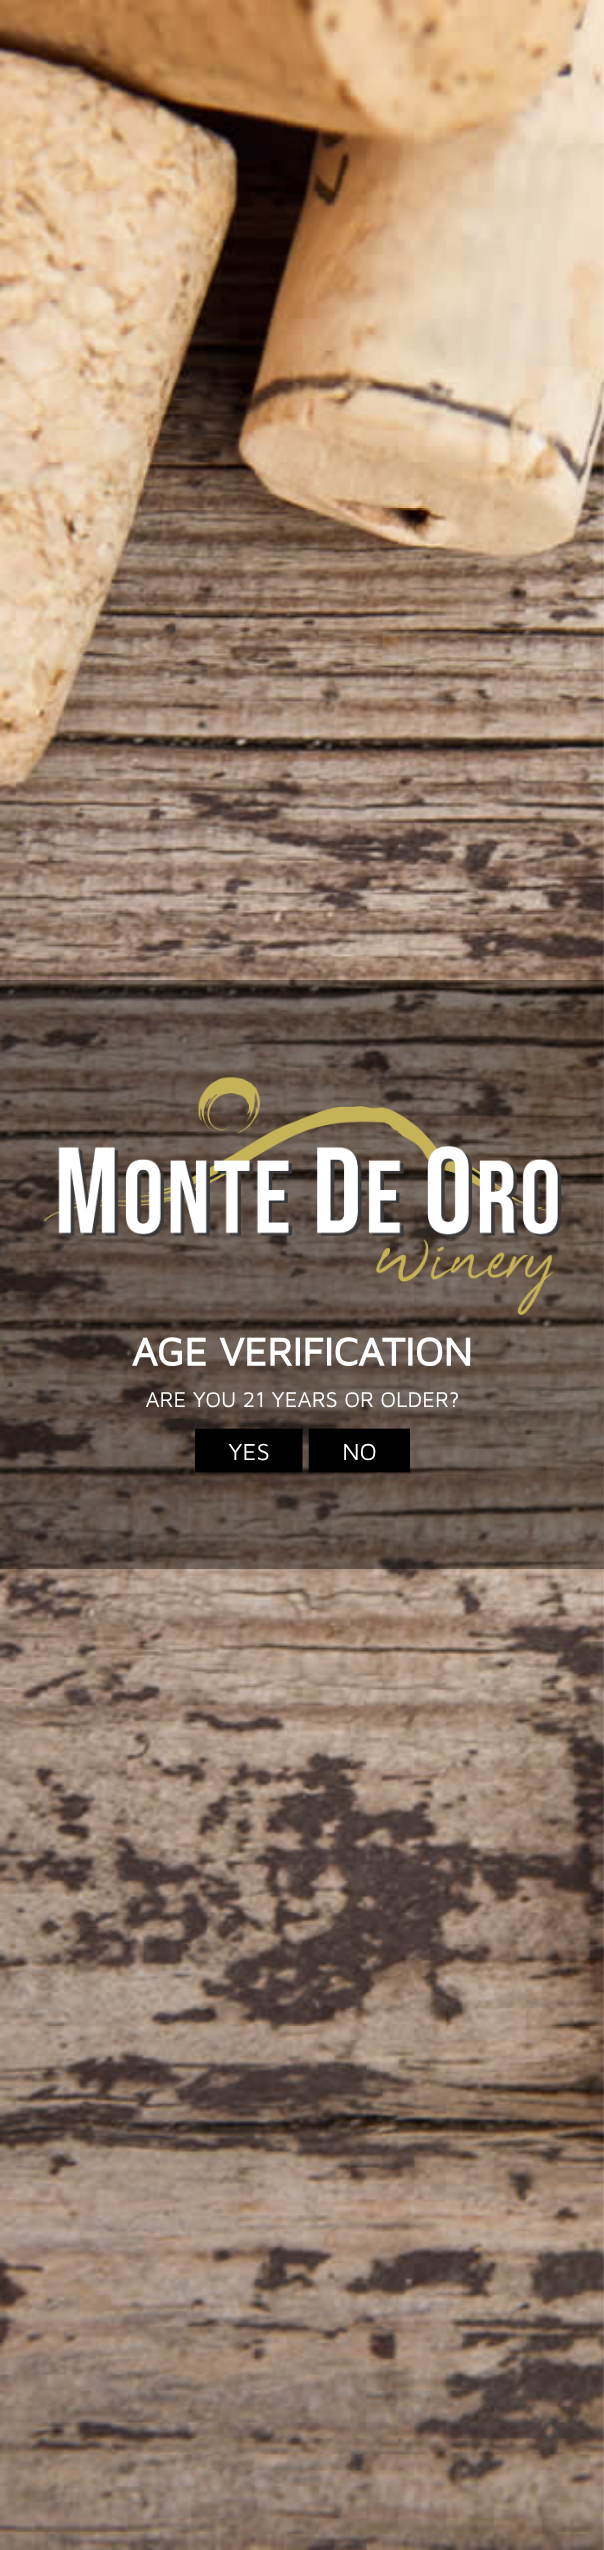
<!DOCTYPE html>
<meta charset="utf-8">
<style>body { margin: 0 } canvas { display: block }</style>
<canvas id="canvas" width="604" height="2550"></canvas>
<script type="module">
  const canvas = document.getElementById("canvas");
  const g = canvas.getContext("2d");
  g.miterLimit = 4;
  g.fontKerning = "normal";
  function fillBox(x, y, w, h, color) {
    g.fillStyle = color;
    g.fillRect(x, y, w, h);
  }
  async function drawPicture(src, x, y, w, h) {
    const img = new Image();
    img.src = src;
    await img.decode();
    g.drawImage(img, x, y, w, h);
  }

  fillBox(0, 0, 604, 2550, "#FFFFFF");
  await drawPicture("pic1.png", 0, 0, 604, 2550);
  await drawPicture("pic2.png", 0, 980, 604, 589);
</script>
